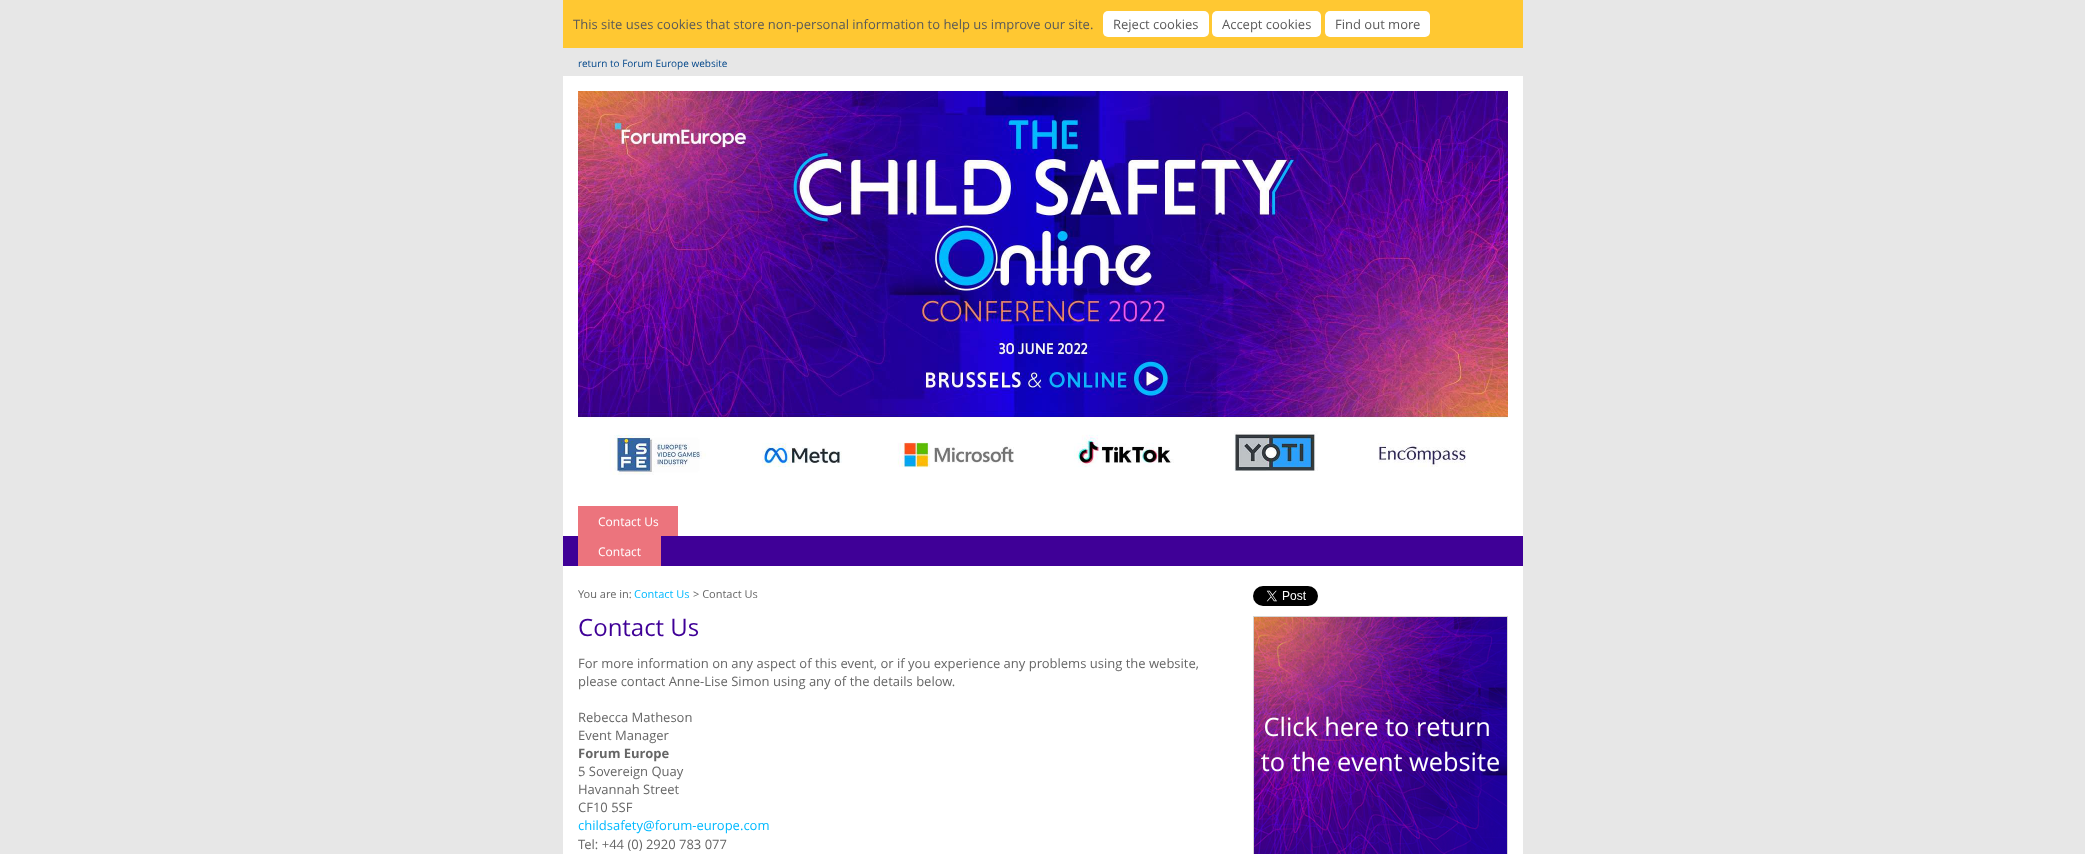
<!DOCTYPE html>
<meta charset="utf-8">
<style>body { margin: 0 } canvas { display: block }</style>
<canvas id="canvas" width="2085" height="854"></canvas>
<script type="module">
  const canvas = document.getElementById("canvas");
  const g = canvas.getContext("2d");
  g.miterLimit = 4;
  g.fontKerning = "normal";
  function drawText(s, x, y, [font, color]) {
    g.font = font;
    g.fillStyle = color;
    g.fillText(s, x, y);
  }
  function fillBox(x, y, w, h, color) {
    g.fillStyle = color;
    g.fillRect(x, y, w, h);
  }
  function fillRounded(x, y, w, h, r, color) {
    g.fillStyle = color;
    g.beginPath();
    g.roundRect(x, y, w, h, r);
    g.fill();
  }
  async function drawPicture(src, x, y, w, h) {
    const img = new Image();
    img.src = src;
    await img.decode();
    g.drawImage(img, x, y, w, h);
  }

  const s1 = ["13px Open Sans", "#595959"];
  const s2 = ["10px Open Sans", "#004589"];
  const s3 = ["12px Open Sans", "#FFFFFF"];
  const s4 = ["11px Open Sans", "#666666"];
  const s5 = ["11px Open Sans", "#01B9FF"];
  const s6 = ["24px Open Sans", "#3F0097"];
  const s7 = ["13px Open Sans", "#666666"];
  const s8 = ["bold 13px Open Sans", "#666666"];
  const s9 = ["13px Open Sans", "#01B9FF"];

  fillBox(0, 0, 2085, 854, "#E7E7E7");
  fillBox(563, 76, 960, 778, "#FFFFFF");
  fillBox(563, 0, 960, 48, "#FFC832");
  drawText("This site uses cookies that store non-personal information to help us improve our site.", 573, 29, s1);
  fillRounded(1103, 11, 106, 26, 5, "#FFFFFF");
  drawText("Reject cookies", 1113, 29, s1);
  fillRounded(1212, 11, 109, 26, 5, "#FFFFFF");
  drawText("Accept cookies", 1222, 29, s1);
  fillRounded(1325, 11, 105, 26, 5, "#FFFFFF");
  drawText("Find out more", 1335, 29, s1);
  drawText("return to Forum Europe website", 578, 67, s2);
  await drawPicture("pic1.png", 578, 91, 930, 384);
  fillBox(578, 506, 100, 30, "#EC747D");
  drawText("Contact Us", 598, 526, s3);
  fillBox(563, 536, 960, 30, "#3F0097");
  fillBox(578, 536, 83, 30, "#EC747D");
  drawText("Contact", 598, 556, s3);
  drawText("You are in:", 578, 598, s4);
  drawText("Contact Us", 634, 598, s5);
  drawText("> Contact Us", 693, 598, s4);
  drawText("Contact Us", 578, 636, s6);
  drawText("For more information on any aspect of this event, or if you experience any problems using the website,", 578, 668, s7);
  drawText("please contact Anne-Lise Simon using any of the details below.", 578, 686, s7);
  drawText("Rebecca Matheson", 578, 722, s7);
  drawText("Event Manager", 578, 740, s7);
  drawText("Forum Europe", 578, 758, s8);
  drawText("5 Sovereign Quay", 578, 776, s7);
  drawText("Havannah Street", 578, 794, s7);
  drawText("CF10 5SF", 578, 812, s7);
  drawText("childsafety@forum-europe.com", 578, 830, s9);
  drawText("Tel: +44 (0) 2920 783 077", 578, 849, s7);
  await drawPicture("pic2.png", 1253, 586, 65, 20);
  g.strokeStyle = "#D5D5D5";
  g.strokeRect(1253.5, 616.5, 254, 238);
  await drawPicture("pic3.png", 1254, 617, 253, 237);
</script>
